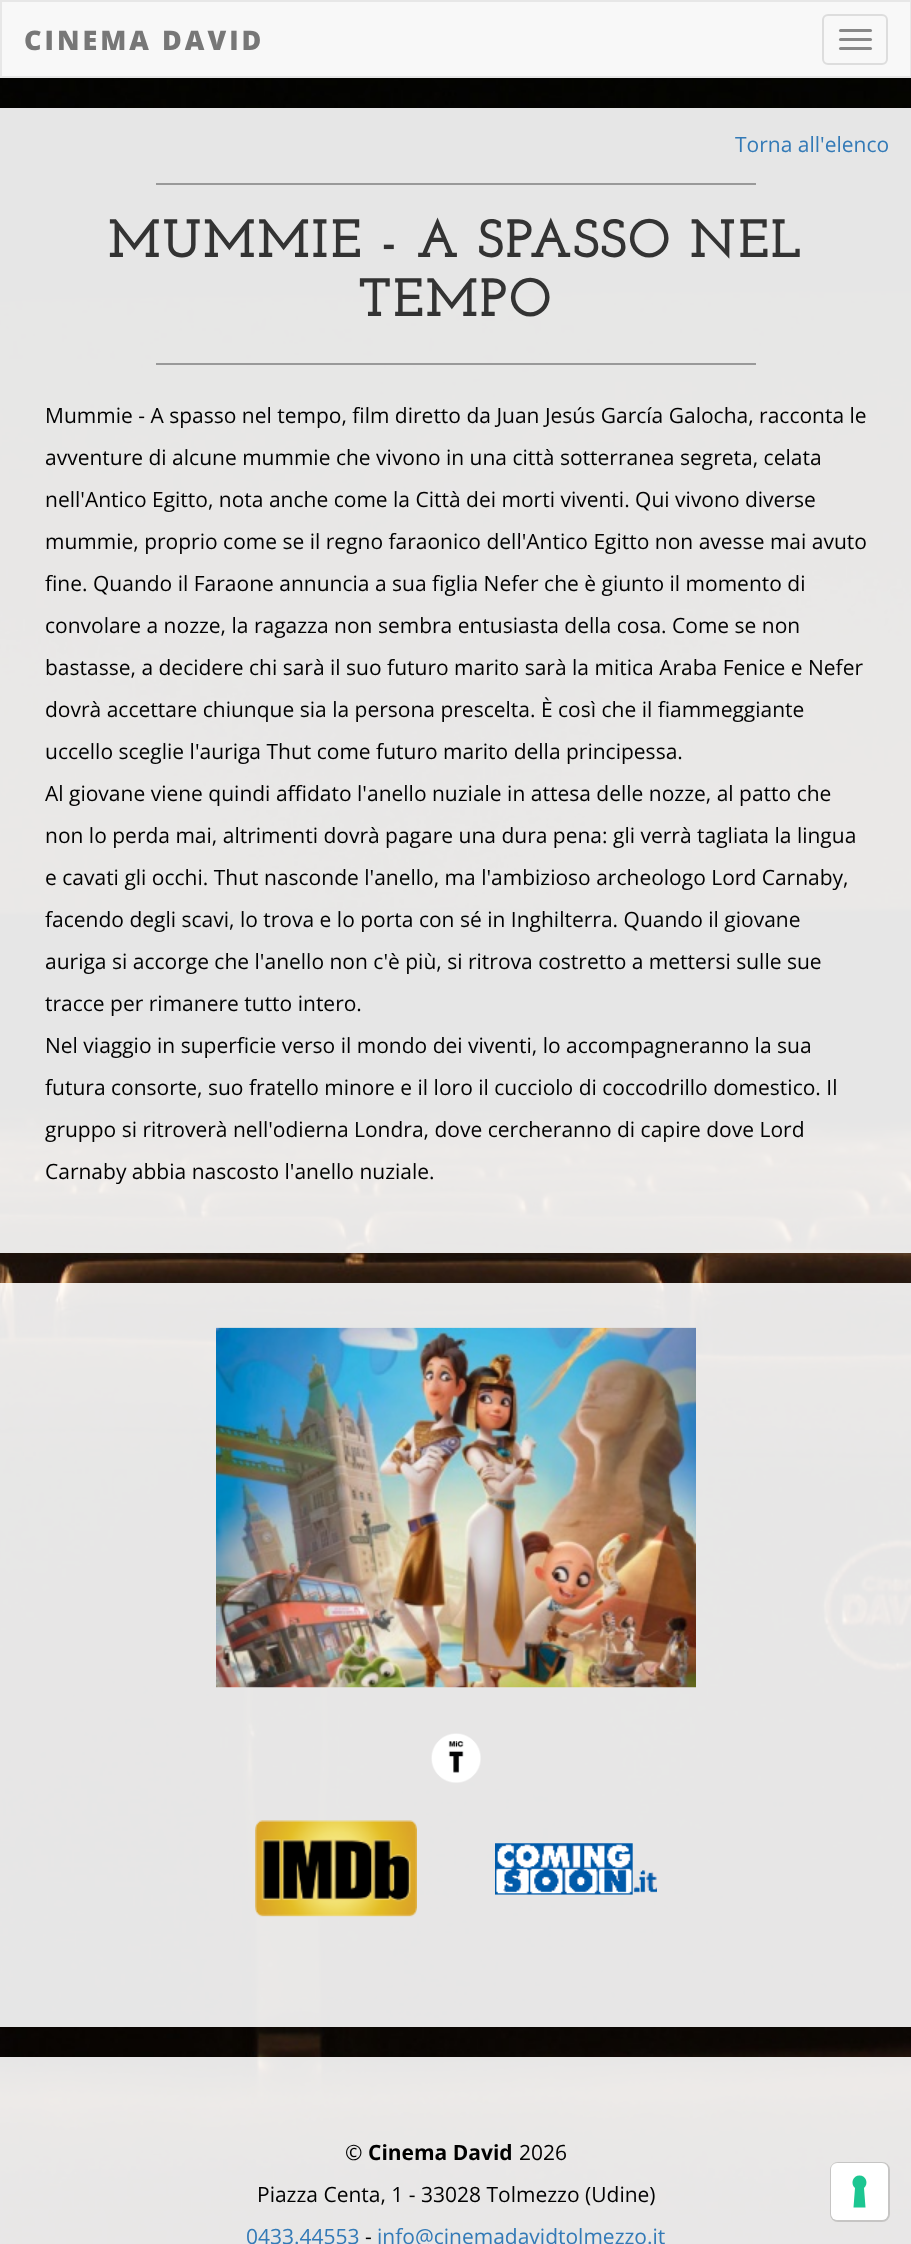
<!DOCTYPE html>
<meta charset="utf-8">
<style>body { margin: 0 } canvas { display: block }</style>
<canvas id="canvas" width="911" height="2244"></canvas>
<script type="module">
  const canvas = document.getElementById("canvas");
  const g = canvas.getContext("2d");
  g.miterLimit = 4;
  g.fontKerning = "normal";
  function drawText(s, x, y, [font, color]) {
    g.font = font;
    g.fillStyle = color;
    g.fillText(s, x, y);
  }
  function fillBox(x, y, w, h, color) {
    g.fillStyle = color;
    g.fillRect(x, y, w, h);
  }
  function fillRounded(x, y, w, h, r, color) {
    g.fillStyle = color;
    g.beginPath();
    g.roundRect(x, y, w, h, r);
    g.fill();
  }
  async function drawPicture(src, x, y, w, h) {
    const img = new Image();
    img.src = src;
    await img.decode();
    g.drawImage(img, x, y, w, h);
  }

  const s1 = ["800 27px Open Sans", "#777777"];
  const s2 = ["21px Open Sans", "#337AB7"];
  const s3 = ["bold 54px Josefin Slab", "#333333"];
  const s4 = ["21px Open Sans", "#000000"];
  const s5 = ["bold 21px Open Sans", "#000000"];

  fillBox(0, 0, 911, 2244, "#FFFFFF");
  g.fillStyle = "#F8F8F8";
  g.beginPath();
  g.rect(1, 1, 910, 76);
  g.fill();
  g.strokeStyle = "#E7E7E7";
  g.lineWidth = 2;
  g.stroke();
  g.letterSpacing = "3px";
  drawText("CINEMA DAVID", 24, 50, s1);
  g.beginPath();
  g.roundRect(823, 15, 64, 49, 5);
  g.strokeStyle = "#DDDDDD";
  g.stroke();
  fillRounded(839, 29, 33, 3, 1.5, "#888888");
  fillRounded(839, 38, 33, 3, 1.5, "#888888");
  fillRounded(839, 47, 33, 3, 1.5, "#888888");
  await drawPicture("pic5.png", 0, 78, 911, 2166);
  fillBox(0, 108, 911, 1145, "rgba(255, 255, 255, 0.9)");
  g.letterSpacing = "0px";
  drawText("Torna all'elenco", 735, 152, s2);
  fillBox(156, 183, 600, 2, "#999999");
  g.letterSpacing = "1.5px";
  drawText("MUMMIE - A SPASSO NEL", 108, 257, s3);
  drawText("TEMPO", 358, 316, s3);
  fillBox(156, 363, 600, 2, "#999999");
  g.letterSpacing = "0px";
  drawText("Mummie - A spasso nel tempo, film diretto da Juan Jesús García Galocha, racconta le", 45, 423, s4);
  drawText("avventure di alcune mummie che vivono in una città sotterranea segreta, celata", 45, 465, s4);
  drawText("nell'Antico Egitto, nota anche come la Città dei morti viventi. Qui vivono diverse", 45, 507, s4);
  drawText("mummie, proprio come se il regno faraonico dell'Antico Egitto non avesse mai avuto", 45, 549, s4);
  drawText("fine. Quando il Faraone annuncia a sua figlia Nefer che è giunto il momento di", 45, 591, s4);
  drawText("convolare a nozze, la ragazza non sembra entusiasta della cosa. Come se non", 45, 633, s4);
  drawText("bastasse, a decidere chi sarà il suo futuro marito sarà la mitica Araba Fenice e Nefer", 45, 675, s4);
  drawText("dovrà accettare chiunque sia la persona prescelta. È così che il fiammeggiante", 45, 717, s4);
  drawText("uccello sceglie l'auriga Thut come futuro marito della principessa.", 45, 759, s4);
  drawText("Al giovane viene quindi affidato l'anello nuziale in attesa delle nozze, al patto che", 45, 801, s4);
  drawText("non lo perda mai, altrimenti dovrà pagare una dura pena: gli verrà tagliata la lingua", 45, 843, s4);
  drawText("e cavati gli occhi. Thut nasconde l'anello, ma l'ambizioso archeologo Lord Carnaby,", 45, 885, s4);
  drawText("facendo degli scavi, lo trova e lo porta con sé in Inghilterra. Quando il giovane", 45, 927, s4);
  drawText("auriga si accorge che l'anello non c'è più, si ritrova costretto a mettersi sulle sue", 45, 969, s4);
  drawText("tracce per rimanere tutto intero.", 45, 1011, s4);
  drawText("Nel viaggio in superficie verso il mondo dei viventi, lo accompagneranno la sua", 45, 1053, s4);
  drawText("futura consorte, suo fratello minore e il loro il cucciolo di coccodrillo domestico. Il", 45, 1095, s4);
  drawText("gruppo si ritroverà nell'odierna Londra, dove cercheranno di capire dove Lord", 45, 1137, s4);
  drawText("Carnaby abbia nascosto l'anello nuziale.", 45, 1179, s4);
  fillBox(0, 1283, 911, 744, "rgba(255, 255, 255, 0.9)");
  await drawPicture("pic1.png", 216, 1327, 480, 361);
  await drawPicture("pic2.png", 431, 1733, 50, 50);
  await drawPicture("pic3.png", 255, 1820, 162, 97);
  await drawPicture("pic4.png", 495, 1843, 162, 52);
  fillBox(0, 2057, 911, 187, "rgba(255, 255, 255, 0.9)");
  drawText("©", 345, 2160, s4);
  drawText("Cinema David", 368, 2160, s5);
  drawText("2026", 519, 2160, s4);
  drawText("Piazza Centa, 1 - 33028 Tolmezzo (Udine)", 257, 2202, s4);
  drawText("0433.44553", 246, 2244, s2);
  drawText("-", 365, 2244, s4);
  drawText("info@cinemadavidtolmezzo.it", 377, 2244, s2);
  g.beginPath();
  g.roundRect(831, 2163, 58, 58, 7);
  g.strokeStyle = "#C6C5C4";
  g.stroke();
  fillRounded(831, 2163, 57, 57, 6, "#FFFFFF");
  g.fillStyle = "#1CC691";
  g.beginPath();
  g.moveTo(859.5, 2175.5);
  g.bezierCurveTo(866, 2175.5, 869, 2183.5, 864, 2188);
  g.lineTo(865.5, 2207.5);
  g.lineTo(853.5, 2207.5);
  g.lineTo(855, 2188);
  g.bezierCurveTo(850, 2183.5, 853, 2175.5, 859.5, 2175.5);
  g.closePath();
  g.fill("evenodd");
</script>
